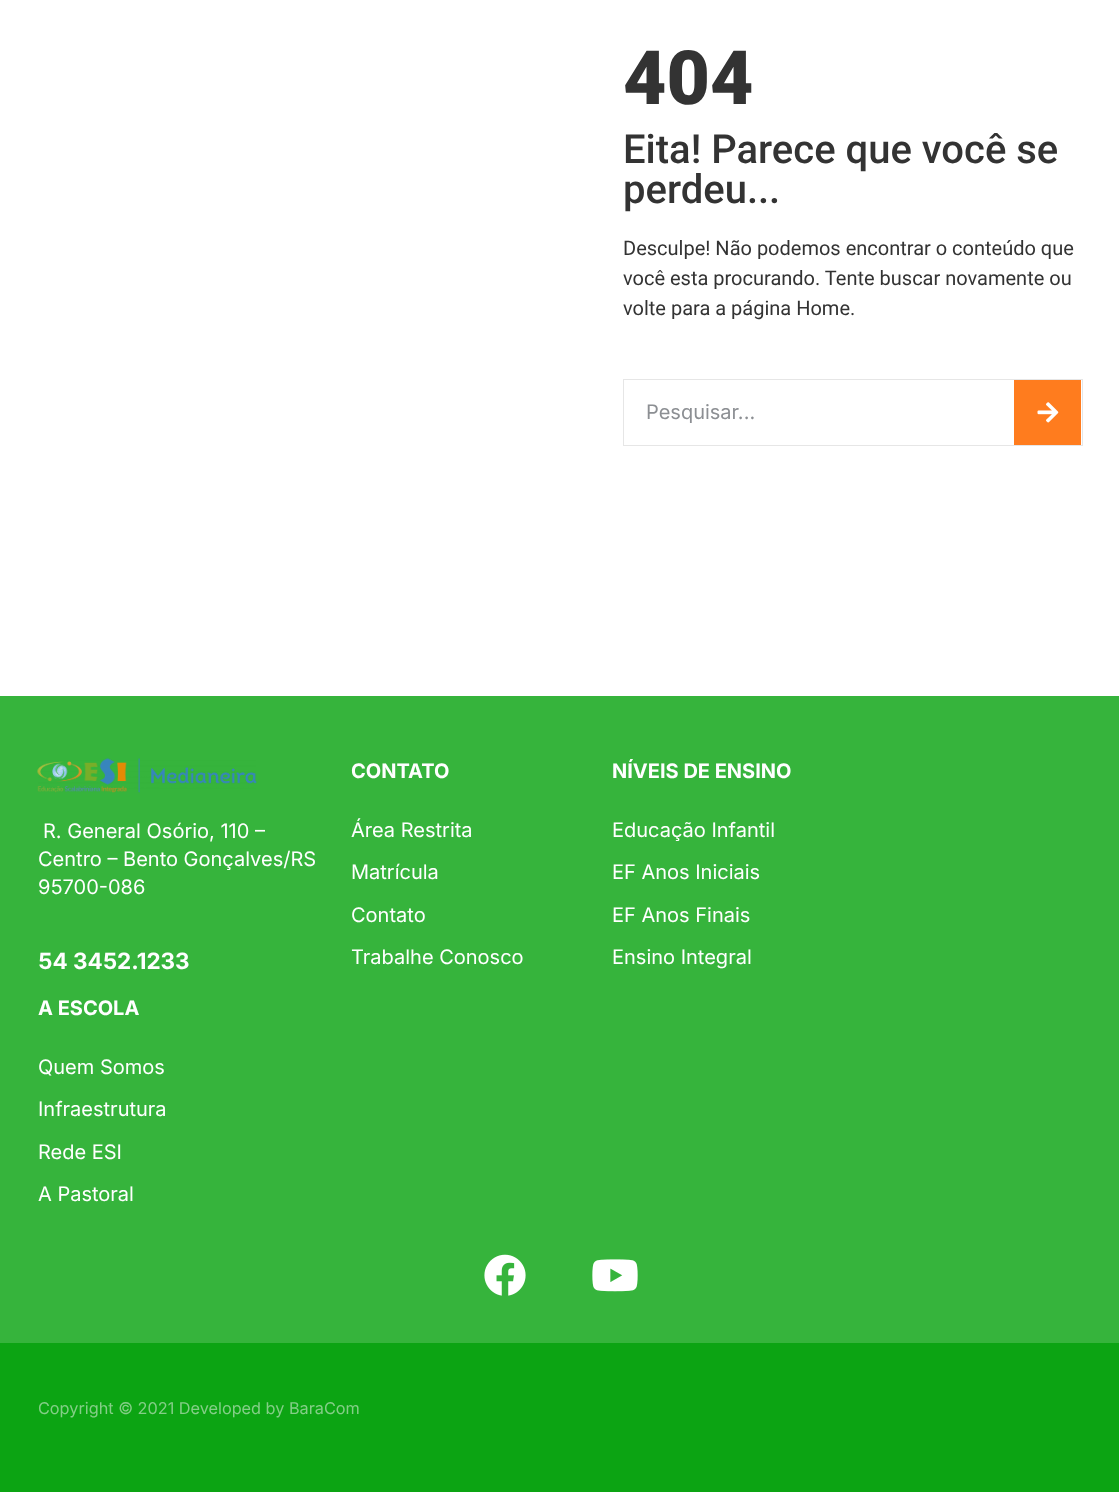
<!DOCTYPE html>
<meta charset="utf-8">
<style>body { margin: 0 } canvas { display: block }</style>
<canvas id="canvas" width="1119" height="1492"></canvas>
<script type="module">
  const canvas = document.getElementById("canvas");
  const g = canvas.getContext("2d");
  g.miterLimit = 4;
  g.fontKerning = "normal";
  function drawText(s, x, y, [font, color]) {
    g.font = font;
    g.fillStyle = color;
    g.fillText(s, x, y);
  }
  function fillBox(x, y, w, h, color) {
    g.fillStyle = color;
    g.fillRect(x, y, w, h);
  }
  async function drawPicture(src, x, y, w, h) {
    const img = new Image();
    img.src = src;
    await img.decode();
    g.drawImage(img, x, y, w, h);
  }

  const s1 = ["900 75px Roboto", "#333333"];
  const s2 = ["500 40px Roboto", "#333333"];
  const s3 = ["20px Roboto", "#333333"];
  const s4 = ["20px Inter", "#8C8F93"];
  const s5 = ["20px Inter", "#FFFFFF"];
  const s6 = ["bold 22.5px Inter", "#FFFFFF"];
  const s7 = ["bold 20px Inter", "#FFFFFF"];
  const s8 = ["16.25px Inter", "#84CE87"];

  fillBox(0, 0, 1119, 1492, "#FFFFFF");
  drawText("404", 623, 104, s1);
  drawText("Eita! Parece que você se", 623, 163, s2);
  drawText("perdeu...", 623, 203, s2);
  drawText("Desculpe! Não podemos encontrar o conteúdo que", 623, 255, s3);
  drawText("você esta procurando. Tente buscar novamente ou", 623, 285, s3);
  drawText("volte para a página Home.", 623, 315, s3);
  g.strokeStyle = "#E6E6E6";
  g.strokeRect(623.5, 379.5, 459, 66);
  drawText("Pesquisar...", 646, 419, s4);
  fillBox(1014, 380, 67, 65, "#FF7C1E");
  await drawPicture("pic1.png", 1037, 402, 22, 21);
  fillBox(0, 696, 1119, 647, "#36B43C");
  await drawPicture("pic2.png", 37, 758, 220, 35);
  drawText("R. General Osório, 110 –", 43, 838, s5);
  drawText("Centro – Bento Gonçalves/RS", 38, 866, s5);
  drawText("95700-086", 38, 894, s5);
  drawText("54 3452.1233", 38, 969, s6);
  drawText("CONTATO", 351, 778, s7);
  drawText("Área Restrita", 351, 837, s5);
  drawText("Matrícula", 351, 879, s5);
  drawText("Contato", 351, 922, s5);
  drawText("Trabalhe Conosco", 351, 964, s5);
  drawText("NÍVEIS DE ENSINO", 612, 778, s7);
  drawText("Educação Infantil", 612, 837, s5);
  drawText("EF Anos Iniciais", 612, 879, s5);
  drawText("EF Anos Finais", 612, 922, s5);
  drawText("Ensino Integral", 612, 964, s5);
  drawText("A ESCOLA", 38, 1015, s7);
  drawText("Quem Somos", 38, 1074, s5);
  drawText("Infraestrutura", 38, 1116, s5);
  drawText("Rede ESI", 38, 1159, s5);
  drawText("A Pastoral", 38, 1201, s5);
  await drawPicture("pic3.png", 484, 1254, 42, 42);
  await drawPicture("pic4.png", 592, 1259, 46, 33);
  fillBox(0, 1343, 1119, 149, "#0CA413");
  drawText("Copyright © 2021 Developed by BaraCom", 38, 1414, s8);
</script>
